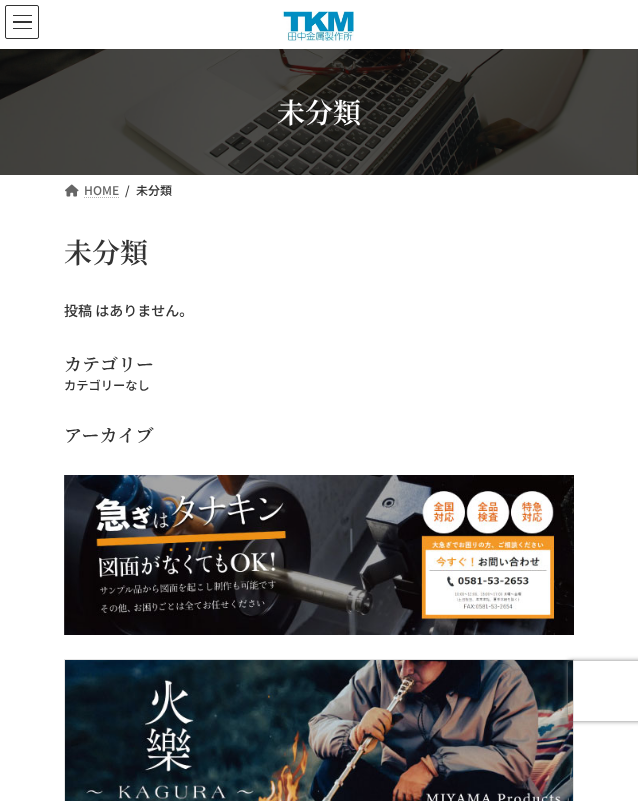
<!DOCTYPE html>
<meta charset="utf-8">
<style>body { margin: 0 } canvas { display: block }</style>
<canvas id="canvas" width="638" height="801"></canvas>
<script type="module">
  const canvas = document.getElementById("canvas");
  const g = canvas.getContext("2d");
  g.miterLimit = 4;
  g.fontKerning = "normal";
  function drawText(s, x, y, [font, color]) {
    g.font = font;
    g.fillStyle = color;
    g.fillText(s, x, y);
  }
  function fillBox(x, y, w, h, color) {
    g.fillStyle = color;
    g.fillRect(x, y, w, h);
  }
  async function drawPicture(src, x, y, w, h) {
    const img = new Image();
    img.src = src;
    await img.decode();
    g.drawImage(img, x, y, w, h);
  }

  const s1 = ["200 28px Noto Serif JP", "#FFFFFF"];
  const s2 = ["500 12px Noto Sans JP", "#666666"];
  const s3 = ["500 12px Noto Sans JP", "#333333"];
  const s4 = ["200 28px Noto Serif JP", "#333333"];
  const s5 = ["500 14px Noto Sans JP", "#333333"];
  const s6 = ["200 18px Noto Serif JP", "#333333"];
  const s7 = ["500 12.25px Noto Sans JP", "#333333"];

  fillBox(0, 0, 638, 801, "#FFFFFF");
  fillBox(13, 15, 19, 1, "#333333");
  fillBox(13, 21, 19, 2, "#333333");
  fillBox(13, 28, 19, 1, "#333333");
  g.beginPath();
  g.roundRect(5.5, 5.5, 33, 33, 1.5);
  g.strokeStyle = "#333333";
  g.stroke();
  await drawPicture("pic1.png", 282, 11, 72, 31);
  await drawPicture("pic2.png", 0, 49, 638, 126);
  drawText("未分類", 277, 123, s1);
  await drawPicture("pic3.png", 65, 184, 14, 13);
  drawText("HOME", 84, 195, s2);
  g.beginPath();
  g.moveTo(84, 197.5);
  g.lineTo(119, 197.5);
  g.strokeStyle = "#B3B3B3";
  g.setLineDash([1, 1]);
  g.stroke();
  drawText("/", 125, 195, s3);
  drawText("未分類", 136, 195, s3);
  drawText("未分類", 64, 263, s4);
  drawText("投稿 はありません。", 64, 316, s5);
  drawText("カテゴリー", 64, 371, s6);
  drawText("カテゴリーなし", 64, 390, s7);
  drawText("アーカイブ", 64, 442, s6);
  await drawPicture("pic4.png", 64, 475, 510, 160);
  g.strokeStyle = "#E5E5E5";
  g.setLineDash([]);
  g.strokeRect(64.5, 659.5, 509, 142);
  await drawPicture("pic5.png", 65, 660, 508, 141);
  g.save();
  g.beginPath();
  g.moveTo(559, 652);
  g.lineTo(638, 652);
  g.lineTo(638, 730);
  g.lineTo(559, 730);
  g.closePath();
  g.moveTo(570, 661);
  g.lineTo(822, 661);
  g.bezierCurveTo(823, 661, 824, 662, 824, 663);
  g.lineTo(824, 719);
  g.bezierCurveTo(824, 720, 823, 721, 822, 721);
  g.lineTo(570, 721);
  g.bezierCurveTo(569, 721, 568, 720, 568, 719);
  g.lineTo(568, 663);
  g.bezierCurveTo(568, 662, 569, 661, 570, 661);
  g.closePath();
  g.clip("evenodd");
  g.fillStyle = "#808080";
  g.filter = "blur(2.5px)";
  g.beginPath();
  g.roundRect(568, 661, 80, 60, 2);
  g.fill();
  g.filter = "none";
  g.restore();
</script>
